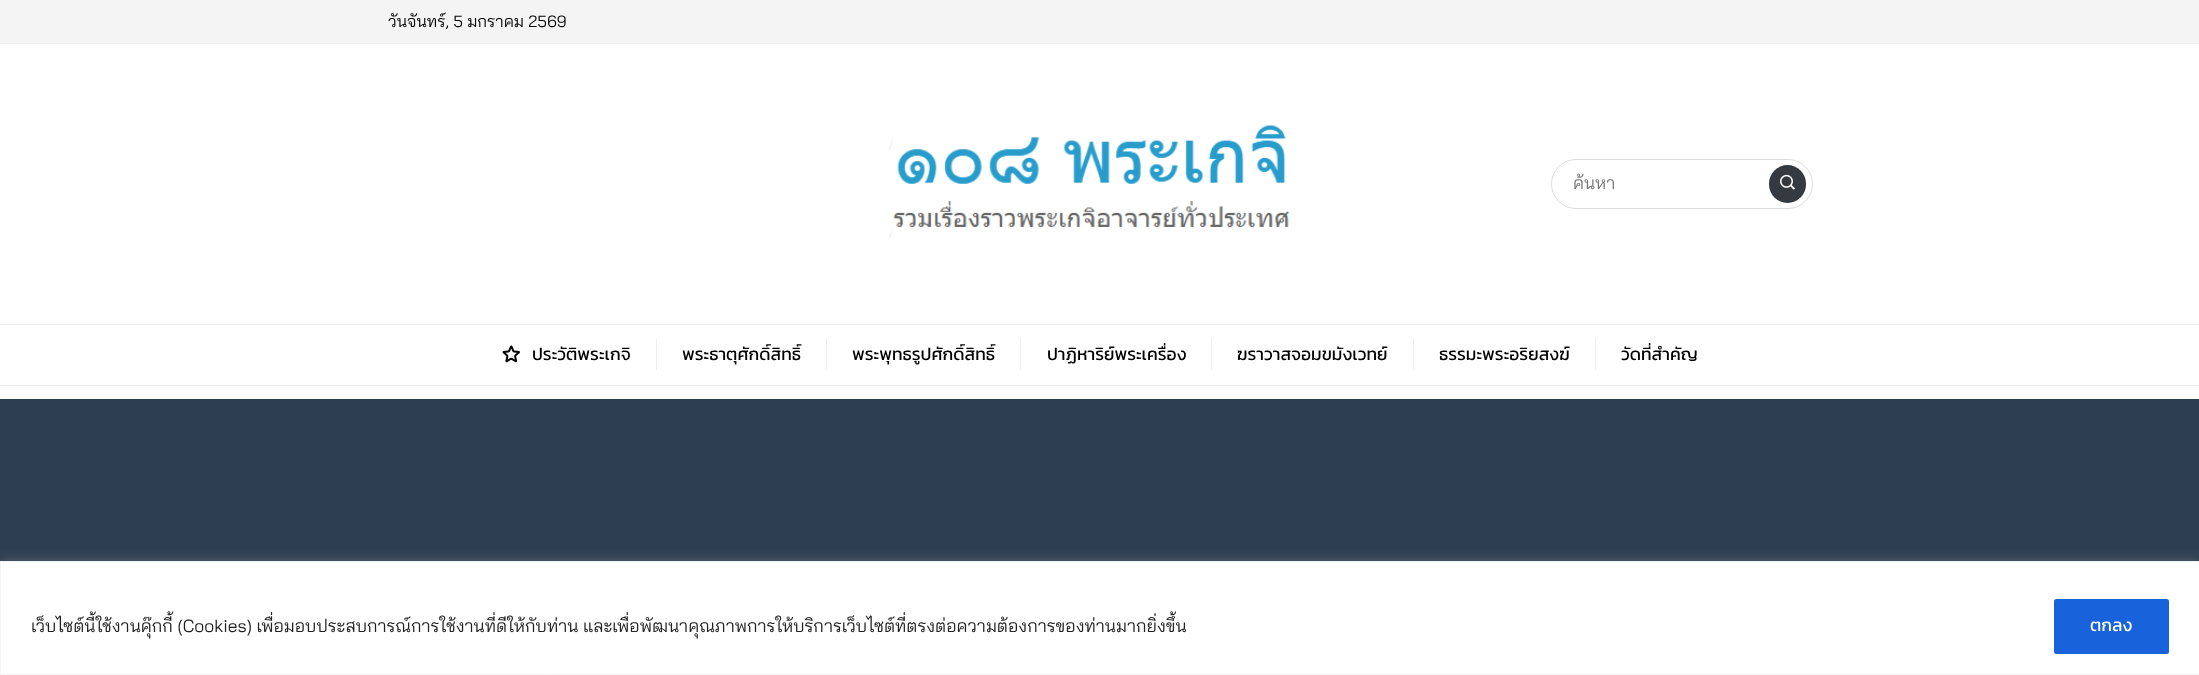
<!DOCTYPE html>
<meta charset="utf-8">
<style>body { margin: 0 } canvas { display: block }</style>
<canvas id="canvas" width="2199" height="675"></canvas>
<script type="module">
  const canvas = document.getElementById("canvas");
  const g = canvas.getContext("2d");
  g.miterLimit = 4;
  g.fontKerning = "normal";
  function drawText(s, x, y, [font, color]) {
    g.font = font;
    g.fillStyle = color;
    g.fillText(s, x, y);
  }
  function fillBox(x, y, w, h, color) {
    g.fillStyle = color;
    g.fillRect(x, y, w, h);
  }
  function fillRounded(x, y, w, h, r, color) {
    g.fillStyle = color;
    g.beginPath();
    g.roundRect(x, y, w, h, r);
    g.fill();
  }
  async function drawPicture(src, x, y, w, h) {
    const img = new Image();
    img.src = src;
    await img.decode();
    g.drawImage(img, x, y, w, h);
  }

  const s1 = ["16.25px Bai Jamjuree", "#000000"];
  const s2 = ["17.5px Bai Jamjuree", "#757575"];
  const s3 = ["17.5px Kanit", "#000000"];
  const s4 = ["17.5px Bai Jamjuree", "#212121"];
  const s5 = ["17.5px Kanit", "#FFFFFF"];

  fillBox(0, 0, 2199, 675, "#FFFFFF");
  fillBox(0, 0, 2199, 43, "#F4F4F4");
  fillBox(0, 43, 2199, 1, "#EEEEEE");
  drawText("วันจันทร์, 5 มกราคม 2569", 388, 27, s1);
  await drawPicture("pic1.png", 889, 125, 401, 114);
  g.beginPath();
  g.roundRect(1551.5, 159.5, 261, 49, 24.5);
  g.strokeStyle = "#DDDDDD";
  g.stroke();
  g.save();
  g.beginPath();
  g.rect(1573, 171, 182, 23);
  g.clip();
  drawText("ค้นหา", 1573, 189, s2);
  g.restore();
  fillRounded(1769, 165, 37, 38, 18.5, "#343A40");
  await drawPicture("pic2.png", 1780, 174, 15, 16);
  fillBox(0, 324, 2199, 1, "#EEEEEE");
  fillBox(0, 385, 2199, 1, "#EEEEEE");
  fillBox(656, 339, 1, 31, "#EEEEEE");
  await drawPicture("pic3.png", 502, 345, 18, 18);
  drawText("ประวัติพระเกจิ", 532, 360, s3);
  fillBox(826, 339, 1, 31, "#EEEEEE");
  drawText("พระธาตุศักดิ์สิทธิ์", 682, 360, s3);
  fillBox(1020, 339, 1, 31, "#EEEEEE");
  drawText("พระพุทธรูปศักดิ์สิทธิ์", 852, 360, s3);
  fillBox(1211, 339, 1, 31, "#EEEEEE");
  drawText("ปาฏิหาริย์พระเครื่อง", 1047, 360, s3);
  fillBox(1413, 339, 1, 31, "#EEEEEE");
  drawText("ฆราวาสจอมขมังเวทย์", 1237, 360, s3);
  fillBox(1595, 339, 1, 31, "#EEEEEE");
  drawText("ธรรมะพระอริยสงฆ์", 1439, 360, s3);
  drawText("วัดที่สําคัญ", 1621, 360, s3);
  fillBox(0, 399, 2199, 162, "#2C3E50");
  g.fillStyle = "rgba(172, 171, 171, 0.3)";
  g.filter = "blur(6px)";
  g.beginPath();
  g.rect(0, 560, 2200, 114);
  g.fill();
  g.filter = "none";
  g.fillStyle = "#FFFFFF";
  g.beginPath();
  g.rect(0.5, 561.5, 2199, 113);
  g.fill();
  g.strokeStyle = "#F4F4F4";
  g.stroke();
  drawText("เว็บไซต์นี้ใช้งานคุ๊กกี้ (Cookies) เพื่อมอบประสบการณ์การใช้งานที่ดีให้กับท่าน และเพื่อพัฒนาคุณภาพการให้บริการเว็บไซต์ที่ตรงต่อความต้องการของท่านมากยิ่งขึ้น", 31, 632, s4);
  g.fillStyle = "#1863DC";
  g.beginPath();
  g.roundRect(2055.5, 600.5, 112, 52, 1);
  g.fill();
  g.strokeStyle = "#1863DC";
  g.lineWidth = 3;
  g.stroke();
  drawText("ตกลง", 2090, 631, s5);
</script>
